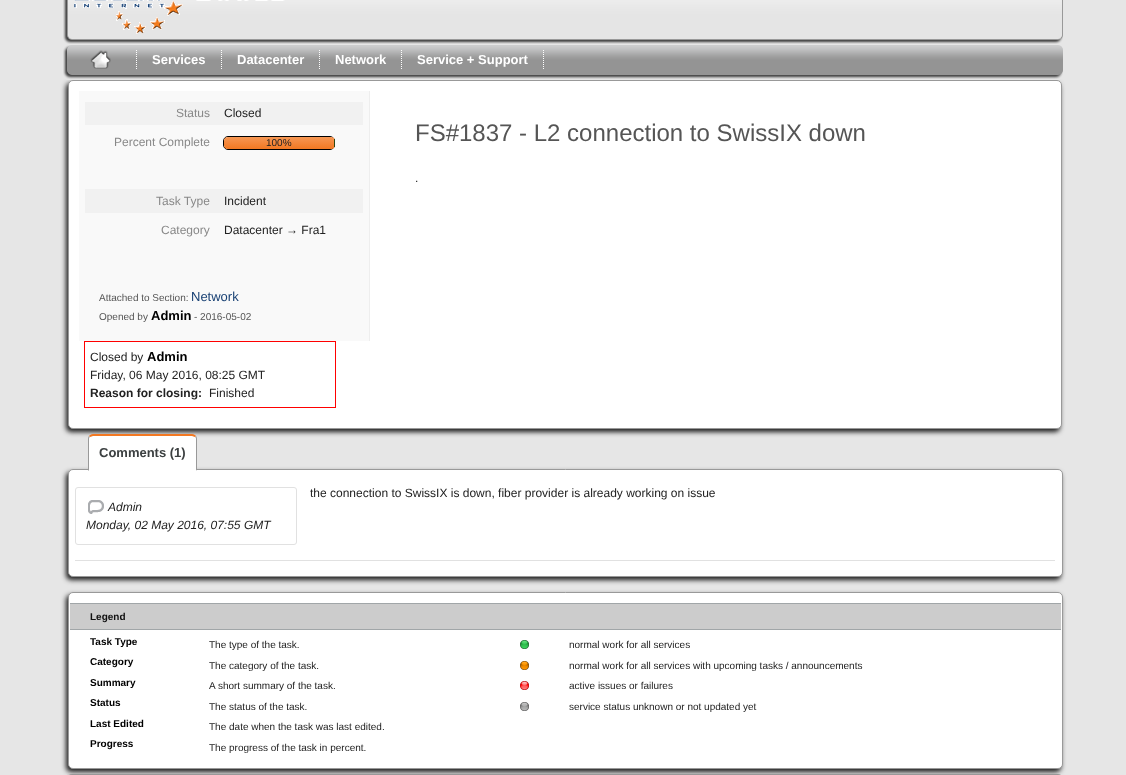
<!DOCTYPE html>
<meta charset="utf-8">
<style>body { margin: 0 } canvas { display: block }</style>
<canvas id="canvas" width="1126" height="775"></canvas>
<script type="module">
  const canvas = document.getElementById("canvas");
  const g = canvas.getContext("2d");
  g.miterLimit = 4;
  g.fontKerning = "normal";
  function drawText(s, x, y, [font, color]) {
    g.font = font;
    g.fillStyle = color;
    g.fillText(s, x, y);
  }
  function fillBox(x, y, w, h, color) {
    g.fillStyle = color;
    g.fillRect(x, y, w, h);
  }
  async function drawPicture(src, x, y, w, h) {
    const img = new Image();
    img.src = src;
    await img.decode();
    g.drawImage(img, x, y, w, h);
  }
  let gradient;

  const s1 = ["bold 13px Liberation Sans", "#FFFFFF"];
  const s2 = ["12px Liberation Sans", "#888888"];
  const s3 = ["12px Liberation Sans", "#222222"];
  const s4 = ["10px Liberation Sans", "#222222"];
  const s5 = ["10px Liberation Sans", "#555555"];
  const s6 = ["13px Liberation Sans", "#194174"];
  const s7 = ["bold 13px Liberation Sans", "#000000"];
  const s8 = ["24px Liberation Sans", "#555555"];
  const s9 = ["bold 12px Liberation Sans", "#222222"];
  const s10 = ["bold 13px Liberation Sans", "#3C4041"];
  const s11 = ["italic 12px Liberation Sans", "#222222"];
  const s12 = ["bold 10px Liberation Sans", "#111111"];
  const s13 = ["bold 10px Liberation Sans", "#000000"];

  fillBox(0, 0, 1126, 775, "#E6E6E6");
  await drawPicture("pic1.png", 63, 0, 1000, 44);
  await drawPicture("pic2.png", 74, 0, 211, 34);
  g.fillStyle = "#1D1D1D";
  g.filter = "blur(2.5px)";
  g.beginPath();
  g.roundRect(66, 83, 994, 349, 5);
  g.fill();
  g.filter = "none";
  fillBox(66, 78, 994, 2, "#E5E5E5");
  await drawPicture("pic3.png", 63, 45, 1000, 34);
  g.beginPath();
  g.moveTo(136.5, 50);
  g.lineTo(136.5, 70);
  g.strokeStyle = "#FFFFFF";
  g.setLineDash([1, 1]);
  g.stroke();
  await drawPicture("pic4.png", 90, 50, 21, 19);
  g.beginPath();
  g.moveTo(221.5, 50);
  g.lineTo(221.5, 70);
  g.stroke();
  drawText("Services", 152, 64, s1);
  g.beginPath();
  g.moveTo(319.5, 50);
  g.lineTo(319.5, 70);
  g.stroke();
  drawText("Datacenter", 237, 64, s1);
  g.beginPath();
  g.moveTo(401.5, 50);
  g.lineTo(401.5, 70);
  g.stroke();
  drawText("Network", 335, 64, s1);
  g.beginPath();
  g.moveTo(543.5, 50);
  g.lineTo(543.5, 70);
  g.stroke();
  drawText("Service + Support", 417, 64, s1);
  g.beginPath();
  g.roundRect(68.5, 80.5, 993, 348, 4.5);
  g.fill();
  g.strokeStyle = "#999999";
  g.setLineDash([]);
  g.stroke();
  fillBox(79, 91, 290, 250, "#F9F9F9");
  fillBox(369, 91, 1, 250, "#EEEEEE");
  fillBox(85, 102, 278, 23, "#F1F1F1");
  drawText("Status", 176, 117, s2);
  drawText("Closed", 224, 117, s3);
  drawText("Percent Complete", 114, 146, s2);
  g.beginPath();
  g.roundRect(223.5, 136.5, 111, 13, 4.5);
  g.strokeStyle = "#000000";
  g.stroke();
  gradient = g.createLinearGradient(279, 137, 279, 149);
  gradient.addColorStop(0, "#F69754");
  gradient.addColorStop(1, "#F27822");
  g.fillStyle = gradient;
  g.beginPath();
  g.roundRect(224, 137, 111, 12, 4);
  g.fill();
  fillBox(334, 139, 1, 8, "#2D4713");
  drawText("100%", 266, 146, s4);
  fillBox(85, 189, 278, 24, "#F1F1F1");
  drawText("Task Type", 156, 205, s2);
  drawText("Incident", 224, 205, s3);
  drawText("Category", 161, 234, s2);
  drawText("Datacenter → Fra1", 224, 234, s3);
  drawText("Attached to Section:", 99, 301, s5);
  drawText("Network", 191, 301, s6);
  drawText("Opened by", 99, 320, s5);
  drawText("Admin", 151, 320, s7);
  drawText("- 2016-05-02", 194, 320, s5);
  drawText("FS#1837 - L2 connection to SwissIX down", 415, 141, s8);
  drawText(".", 415, 182, s3);
  g.strokeStyle = "#FF0000";
  g.strokeRect(84.5, 341.5, 251, 66);
  drawText("Closed by", 90, 361, s3);
  drawText("Admin", 147, 361, s7);
  drawText("Friday, 06 May 2016, 08:25 GMT", 90, 379, s3);
  drawText("Reason for closing:", 90, 397, s9);
  drawText("Finished", 209, 397, s3);
  g.fillStyle = "#1D1D1D";
  g.filter = "blur(2.5px)";
  g.beginPath();
  g.roundRect(66, 472, 995, 108, 5);
  g.fill();
  g.filter = "none";
  g.fillStyle = "#FFFFFF";
  g.beginPath();
  g.roundRect(68.5, 469.5, 994, 107, 4.5);
  g.fill();
  g.strokeStyle = "#999999";
  g.stroke();
  g.beginPath();
  g.moveTo(93, 436);
  g.lineTo(192, 436);
  g.bezierCurveTo(194, 436, 196, 437, 196, 439);
  g.lineTo(196, 470);
  g.lineTo(89, 470);
  g.lineTo(89, 439);
  g.bezierCurveTo(89, 437, 91, 436, 93, 436);
  g.closePath();
  g.fill();
  g.fillStyle = "#F27822";
  g.beginPath();
  g.moveTo(93, 434);
  g.bezierCurveTo(91, 434, 90, 435, 89, 436);
  g.lineTo(90, 437);
  g.lineTo(93, 436);
  g.lineTo(192, 436);
  g.lineTo(195, 437);
  g.lineTo(196, 436);
  g.bezierCurveTo(195, 435, 194, 434, 192, 434);
  g.closePath();
  g.fill();
  g.fillStyle = "#999999";
  g.beginPath();
  g.moveTo(197, 471);
  g.lineTo(197, 439);
  g.bezierCurveTo(197, 438, 196.5, 436.5, 196, 436);
  g.lineTo(195.5, 437.5);
  g.bezierCurveTo(196, 437.5, 196, 438.5, 196, 439);
  g.lineTo(196, 470);
  g.closePath();
  g.fill();
  g.fillStyle = "#FFFFFF";
  g.beginPath();
  g.moveTo(197, 471);
  g.lineTo(196, 470);
  g.lineTo(89, 470);
  g.lineTo(88, 471);
  g.closePath();
  g.fill();
  g.fillStyle = "#999999";
  g.beginPath();
  g.moveTo(88, 471);
  g.lineTo(89, 470);
  g.lineTo(89, 439);
  g.bezierCurveTo(89, 438.5, 89, 437.5, 89.5, 437.5);
  g.lineTo(89, 436);
  g.bezierCurveTo(88.5, 436.5, 88, 438, 88, 439);
  g.closePath();
  g.fill();
  drawText("Comments (1)", 99, 457, s10);
  fillBox(75, 560, 980, 1, "#E1E1E1");
  drawText("the connection to SwissIX is down, fiber provider is already working on issue", 310, 497, s3);
  g.beginPath();
  g.roundRect(75.5, 487.5, 221, 57, 2.5);
  g.strokeStyle = "#E1E1E1";
  g.stroke();
  await drawPicture("pic5.png", 88, 500, 16, 14);
  drawText("Admin", 108, 511, s11);
  drawText("Monday, 02 May 2016, 07:55 GMT", 86, 529, s11);
  g.fillStyle = "#1D1D1D";
  g.filter = "blur(2.5px)";
  g.beginPath();
  g.roundRect(66, 595, 995, 177, 5);
  g.fill();
  g.filter = "none";
  g.fillStyle = "#FFFFFF";
  g.beginPath();
  g.roundRect(68.5, 592.5, 994, 176, 4.5);
  g.fill();
  g.strokeStyle = "#999999";
  g.stroke();
  fillBox(70, 604, 991, 25, "#CCCCCC");
  fillBox(70, 603, 991, 1, "#A1A6A8");
  fillBox(70, 629, 991, 1, "#A1A6A8");
  drawText("Legend", 90, 620, s12);
  drawText("Task Type", 90, 645, s13);
  drawText("The type of the task.", 209, 648, s4);
  await drawPicture("pic6.png", 520, 640, 9, 9);
  drawText("normal work for all services", 569, 648, s4);
  drawText("Category", 90, 665, s13);
  drawText("The category of the task.", 209, 669, s4);
  await drawPicture("pic7.png", 520, 661, 9, 9);
  drawText("normal work for all services with upcoming tasks / announcements", 569, 669, s4);
  drawText("Summary", 90, 686, s13);
  drawText("A short summary of the task.", 209, 689, s4);
  await drawPicture("pic8.png", 520, 681, 9, 9);
  drawText("active issues or failures", 569, 689, s4);
  drawText("Status", 90, 706, s13);
  drawText("The status of the task.", 209, 710, s4);
  await drawPicture("pic9.png", 520, 702, 9, 9);
  drawText("service status unknown or not updated yet", 569, 710, s4);
  drawText("Last Edited", 90, 727, s13);
  drawText("The date when the task was last edited.", 209, 730, s4);
  drawText("Progress", 90, 747, s13);
  drawText("The progress of the task in percent.", 209, 751, s4);
  await drawPicture("pic10.png", 67, 774, 994, 1);
</script>
